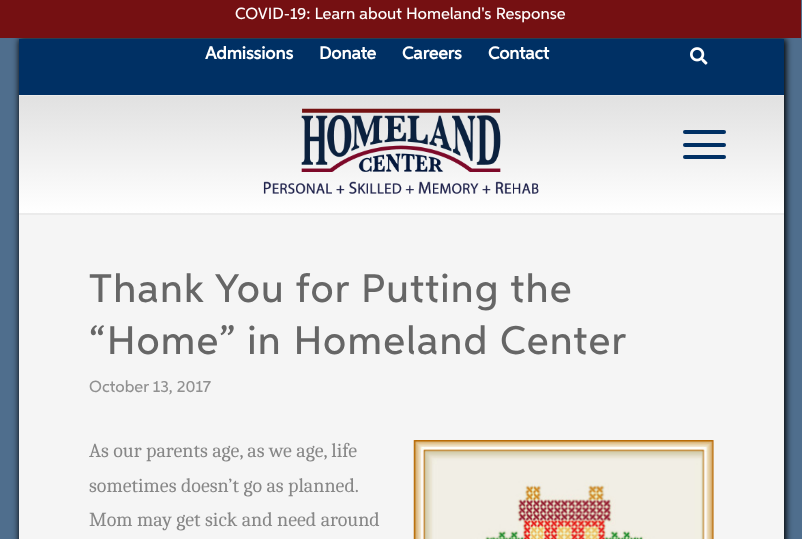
<!DOCTYPE html>
<meta charset="utf-8">
<style>body { margin: 0 } canvas { display: block }</style>
<canvas id="canvas" width="802" height="539"></canvas>
<script type="module">
  const canvas = document.getElementById("canvas");
  const g = canvas.getContext("2d");
  g.miterLimit = 4;
  g.fontKerning = "normal";
  function drawText(s, x, y, [font, color]) {
    g.font = font;
    g.fillStyle = color;
    g.fillText(s, x, y);
  }
  function fillBox(x, y, w, h, color) {
    g.fillStyle = color;
    g.fillRect(x, y, w, h);
  }
  function fillRounded(x, y, w, h, r, color) {
    g.fillStyle = color;
    g.beginPath();
    g.roundRect(x, y, w, h, r);
    g.fill();
  }
  async function drawPicture(src, x, y, w, h) {
    const img = new Image();
    img.src = src;
    await img.decode();
    g.drawImage(img, x, y, w, h);
  }
  let gradient;

  const s1 = ["16.25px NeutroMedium", "#FFFFFF"];
  const s2 = ["bold 17.5px NeutroMedium", "#FFFFFF"];
  const s3 = ["40px NeutroMedium", "#666666"];
  const s4 = ["16.25px NeutroMedium", "#919191"];
  const s5 = ["20px Caladea", "#878787"];

  fillBox(0, 0, 802, 539, "#4F6E8D");
  g.fillStyle = "#000000";
  g.filter = "blur(3px)";
  g.beginPath();
  g.rect(19, 39, 767, 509);
  g.fill();
  g.filter = "none";
  fillBox(0, 0, 801, 38, "#751012");
  drawText("COVID-19: Learn about Homeland's Response", 235, 19, s1);
  fillBox(19, 39, 765, 56, "#003064");
  fillBox(19, 95, 765, 1, "#EBEBEB");
  drawText("Admissions", 205, 59, s2);
  drawText("Donate", 319, 59, s2);
  drawText("Careers", 402, 59, s2);
  drawText("Contact", 488, 59, s2);
  await drawPicture("pic1.png", 690, 47, 18, 18);
  gradient = g.createLinearGradient(401, 96, 401, 213);
  gradient.addColorStop(0, "#E1E1E1");
  gradient.addColorStop(1, "#FFFFFF");
  g.fillStyle = gradient;
  g.fillRect(19, 96, 765, 117);
  await drawPicture("pic2.png", 263, 108, 276, 86);
  fillRounded(683, 143, 43, 4, 2, "#003064");
  fillRounded(683, 130, 43, 4, 2, "#003064");
  fillRounded(683, 155, 43, 4, 2, "#003064");
  fillBox(19, 215, 765, 324, "#F5F5F5");
  fillBox(19, 213, 765, 2, "#EBEBEB");
  g.letterSpacing = "1.25px";
  drawText("Thank You for Putting the", 89, 302, s3);
  drawText("“Home” in Homeland Center", 89, 354, s3);
  g.letterSpacing = "0px";
  drawText("October 13, 2017", 89, 392, s4);
  drawText("As our parents age, as we age, life", 89, 457, s5);
  drawText("sometimes doesn’t go as planned.", 89, 492, s5);
  drawText("Mom may get sick and need around", 89, 526, s5);
  await drawPicture("pic3.png", 413, 440, 301, 99);
</script>
